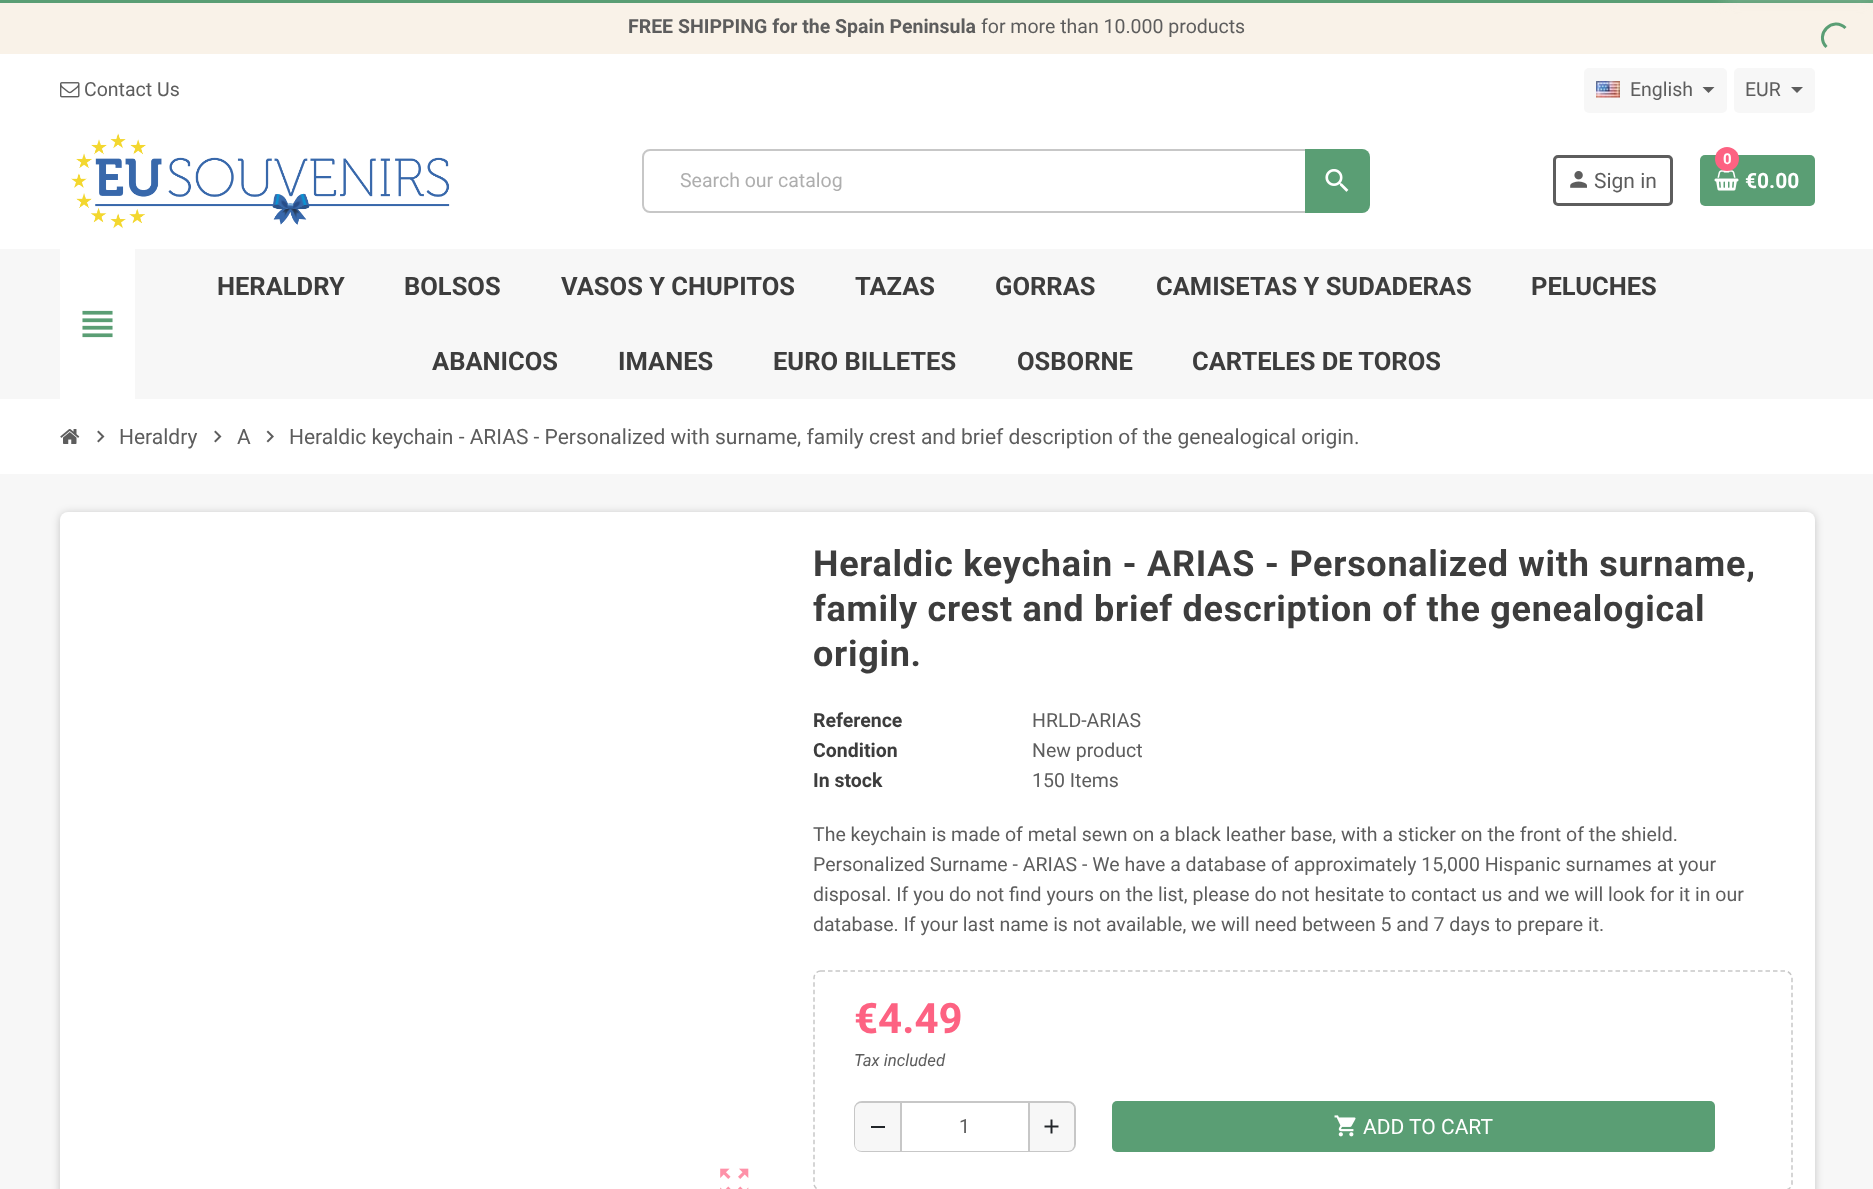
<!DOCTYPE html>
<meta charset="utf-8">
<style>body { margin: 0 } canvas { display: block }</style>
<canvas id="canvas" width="1873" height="1189"></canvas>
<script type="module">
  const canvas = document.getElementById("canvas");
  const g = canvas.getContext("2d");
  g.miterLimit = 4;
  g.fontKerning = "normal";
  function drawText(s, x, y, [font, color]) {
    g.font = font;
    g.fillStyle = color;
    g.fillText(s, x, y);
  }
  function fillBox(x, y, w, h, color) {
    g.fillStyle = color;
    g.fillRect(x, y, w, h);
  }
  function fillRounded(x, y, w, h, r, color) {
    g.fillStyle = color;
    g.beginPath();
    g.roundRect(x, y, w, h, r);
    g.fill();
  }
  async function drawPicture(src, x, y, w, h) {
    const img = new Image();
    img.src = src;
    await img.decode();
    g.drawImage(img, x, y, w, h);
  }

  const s1 = ["bold 19.5px Roboto", "#5D5D5D"];
  const s2 = ["19.5px Roboto", "#5D5D5D"];
  const s3 = ["19.5px Roboto", "#AEAEAE"];
  const s4 = ["21px Roboto", "#5D5D5D"];
  const s5 = ["bold 15px Roboto", "#FFFFFF"];
  const s6 = ["bold 21px Roboto", "#FFFFFF"];
  const s7 = ["bold 25.5px 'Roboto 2'", "#3D3D3D"];
  const s8 = ["bold 36px 'Roboto 2'", "#3D3D3D"];
  const s9 = ["bold 19.5px Roboto", "#3D3D3D"];
  const s10 = ["bold 42px Roboto", "#FD6282"];
  const s11 = ["italic 16.75px Roboto", "#5D5D5D"];
  const s12 = ["21px Roboto", "#FFFFFF"];

  fillBox(0, 0, 1873, 1189, "#FFFFFF");
  fillBox(0, 0, 1873, 3, "#5A9E74");
  fillBox(0, 3, 1873, 51, "#F9F2E8");
  g.fillStyle = "#EEEEEE";
  g.filter = "blur(7.5px)";
  g.beginPath();
  g.rect(1724, -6, 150, 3);
  g.fill();
  g.filter = "none";
  g.beginPath();
  g.moveTo(1826.5, 47);
  g.bezierCurveTo(1814, 34.5, 1833, 15.5, 1845.5, 28);
  g.strokeStyle = "#5A9E74";
  g.lineWidth = 3;
  g.stroke();
  drawText("FREE SHIPPING for the Spain Peninsula", 628, 33, s1);
  drawText("for more than 10.000 products", 981, 33, s2);
  await drawPicture("pic1.png", 60, 82, 20, 16);
  drawText("Contact Us", 84, 96, s2);
  fillRounded(1584, 68, 143, 45, 5, "#F7F7F7");
  await drawPicture("pic2.png", 1596, 81, 24, 17);
  drawText("English", 1630, 96, s2);
  g.beginPath();
  g.moveTo(1702.5, 87);
  g.lineTo(1714.5, 87);
  g.lineTo(1708.5, 93);
  g.closePath();
  g.fill();
  fillRounded(1734, 68, 81, 45, 5, "#F7F7F7");
  drawText("EUR", 1745, 96, s2);
  g.beginPath();
  g.moveTo(1791, 87);
  g.lineTo(1803, 87);
  g.lineTo(1797, 93);
  g.closePath();
  g.fill();
  await drawPicture("pic3.png", 71, 133, 379, 96);
  g.beginPath();
  g.roundRect(643, 150, 724, 62, 7);
  g.strokeStyle = "#C7C7C7";
  g.lineWidth = 2;
  g.stroke();
  drawText("Search our catalog", 680, 187, s3);
  g.fillStyle = "#5A9E74";
  g.beginPath();
  g.roundRect(1305, 149, 65, 64, [0, 8, 8, 0]);
  g.fill();
  await drawPicture("pic4.png", 1325, 169, 24, 23);
  g.beginPath();
  g.roundRect(1554.5, 156.5, 117, 48, 3.5);
  g.strokeStyle = "#5D5D5D";
  g.lineWidth = 3;
  g.stroke();
  await drawPicture("pic5.png", 1570, 171, 17, 17);
  drawText("Sign in", 1594, 188, s4);
  fillRounded(1700, 155, 115, 51, 5, "#5A9E74");
  await drawPicture("pic6.png", 1714, 170, 25, 21);
  g.fillStyle = "#FD6282";
  g.beginPath();
  g.arc(1727, 159, 12, 0, Math.PI * 2);
  g.fill();
  drawText("0", 1723, 164, s5);
  drawText("€0.00", 1745, 188, s6);
  fillBox(0, 249, 1873, 150, "#F7F7F7");
  fillBox(60, 249, 75, 150, "#FFFFFF");
  await drawPicture("pic7.png", 82, 310, 31, 28);
  drawText("HERALDRY", 217, 295, s7);
  drawText("BOLSOS", 404, 295, s7);
  drawText("VASOS Y CHUPITOS", 561, 295, s7);
  drawText("TAZAS", 855, 295, s7);
  drawText("GORRAS", 995, 295, s7);
  drawText("CAMISETAS Y SUDADERAS", 1156, 295, s7);
  drawText("PELUCHES", 1531, 295, s7);
  drawText("ABANICOS", 432, 370, s7);
  drawText("IMANES", 618, 370, s7);
  drawText("EURO BILLETES", 773, 370, s7);
  drawText("OSBORNE", 1017, 370, s7);
  drawText("CARTELES DE TOROS", 1192, 370, s7);
  fillBox(0, 474, 1873, 715, "#F7F7F7");
  await drawPicture("pic8.png", 60, 429, 20, 15);
  await drawPicture("pic9.png", 97, 430, 8, 13);
  drawText("Heraldry", 119, 444, s4);
  await drawPicture("pic9.png", 214, 430, 8, 13);
  drawText("A", 237, 444, s4);
  await drawPicture("pic10.png", 266, 430, 8, 13);
  drawText("Heraldic keychain - ARIAS - Personalized with surname, family crest and brief description of the genealogical origin.", 289, 444, s4);
  g.fillStyle = "rgba(0, 0, 0, 0.2)";
  g.filter = "blur(4px)";
  g.beginPath();
  g.roundRect(60, 513, 1755, 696, 8);
  g.fill();
  g.filter = "none";
  fillRounded(60, 512, 1755, 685, 8, "#FFFFFF");
  g.letterSpacing = "0.72px";
  drawText("Heraldic keychain - ARIAS - Personalized with surname,", 813, 576, s8);
  drawText("family crest and brief description of the genealogical", 813, 621, s8);
  drawText("origin.", 813, 666, s8);
  g.letterSpacing = "0px";
  drawText("Reference", 813, 727, s9);
  drawText("HRLD-ARIAS", 1032, 727, s2);
  drawText("Condition", 813, 757, s9);
  drawText("New product", 1032, 757, s2);
  drawText("In stock", 813, 787, s9);
  drawText("150 Items", 1032, 787, s2);
  drawText("The keychain is made of metal sewn on a black leather base, with a sticker on the front of the shield.", 813, 841, s2);
  drawText("Personalized Surname - ARIAS - We have a database of approximately 15,000 Hispanic surnames at your", 813, 871, s2);
  drawText("disposal. If you do not find yours on the list, please do not hesitate to contact us and we will look for it in our", 813, 901, s2);
  drawText("database. If your last name is not available, we will need between 5 and 7 days to prepare it.", 813, 931, s2);
  g.beginPath();
  g.moveTo(820.5, 971);
  g.lineTo(1785, 971);
  g.bezierCurveTo(1788.5, 971, 1792, 974.5, 1792, 978);
  g.lineTo(1792, 1183.5);
  g.bezierCurveTo(1792, 1187, 1788.5, 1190, 1785, 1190);
  g.lineTo(820.5, 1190);
  g.bezierCurveTo(817, 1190, 814, 1187, 814, 1183.5);
  g.lineTo(814, 978);
  g.bezierCurveTo(814, 974.5, 817, 971, 820.5, 971);
  g.closePath();
  g.strokeStyle = "#C7C7C7";
  g.lineWidth = 1.5;
  g.setLineDash([4.5, 3]);
  g.stroke();
  drawText("€4.49", 854, 1033, s10);
  drawText("Tax included", 854, 1066, s11);
  g.beginPath();
  g.roundRect(855, 1102, 220, 49, 7);
  g.lineWidth = 2;
  g.setLineDash([]);
  g.stroke();
  g.fillStyle = "#F7F7F7";
  g.beginPath();
  g.roundRect(855, 1103, 45, 48, [6, 0, 0, 6]);
  g.fill();
  fillBox(871, 1126, 14, 2, "#212529");
  fillBox(902, 1150, 126, 1, "#FFFFFF");
  g.fillStyle = "#F7F7F7";
  g.beginPath();
  g.roundRect(1029, 1103, 45, 48, [0, 6, 6, 0]);
  g.fill();
  fillBox(1028, 1103, 2, 48, "#C7C7C7");
  fillBox(900, 1103, 2, 48, "#C7C7C7");
  drawText("1", 959, 1133, s2);
  await drawPicture("pic11.png", 1044, 1119, 15, 15);
  fillRounded(1112, 1101, 603, 51, 5, "#5A9E74");
  await drawPicture("pic12.png", 1334, 1115, 22, 22);
  drawText("ADD TO CART", 1363, 1134, s12);
  await drawPicture("pic13.png", 720, 1168, 29, 21);
</script>
